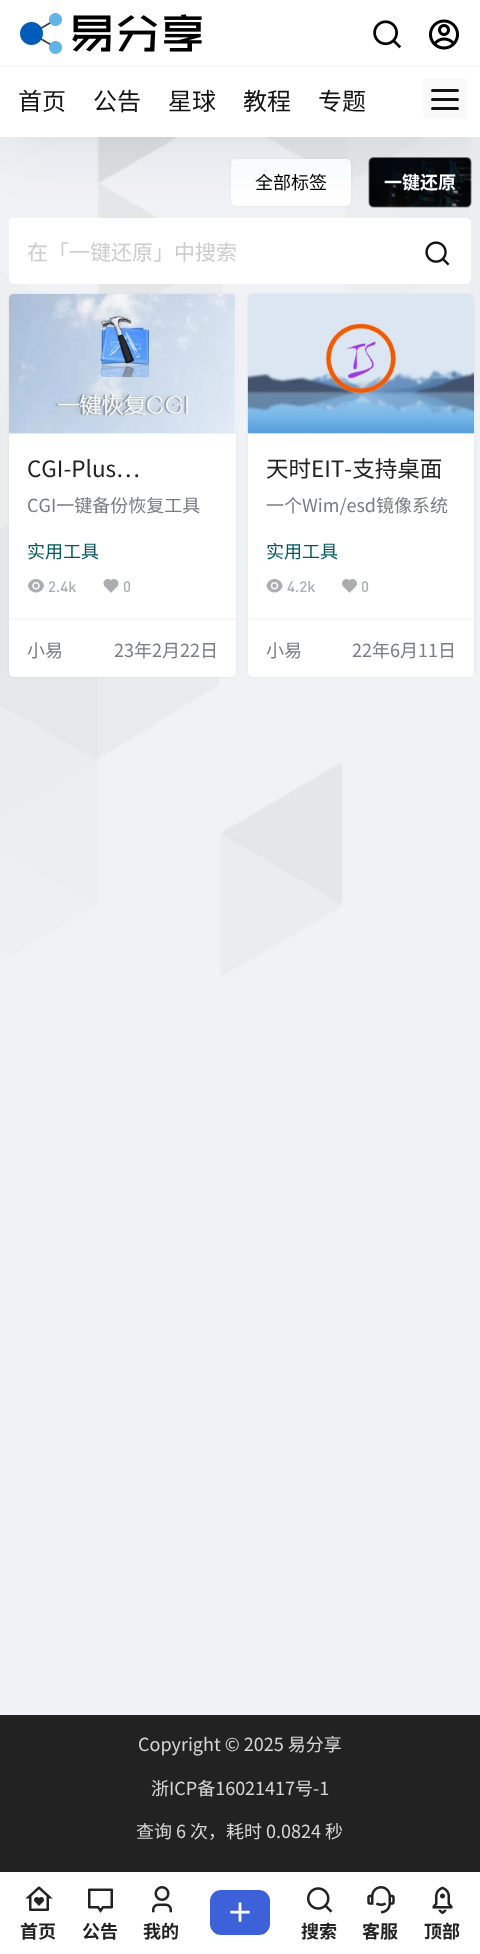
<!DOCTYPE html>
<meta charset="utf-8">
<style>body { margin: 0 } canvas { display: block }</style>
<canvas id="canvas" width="480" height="1954"></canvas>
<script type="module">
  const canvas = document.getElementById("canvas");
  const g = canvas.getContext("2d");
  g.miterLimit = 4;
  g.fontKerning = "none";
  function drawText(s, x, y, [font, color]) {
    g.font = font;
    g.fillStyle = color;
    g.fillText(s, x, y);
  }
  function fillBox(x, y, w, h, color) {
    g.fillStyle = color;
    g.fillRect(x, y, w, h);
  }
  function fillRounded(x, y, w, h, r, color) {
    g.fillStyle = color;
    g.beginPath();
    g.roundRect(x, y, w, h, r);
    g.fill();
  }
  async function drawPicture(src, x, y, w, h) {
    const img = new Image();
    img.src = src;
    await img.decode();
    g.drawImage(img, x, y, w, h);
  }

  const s1 = ["24px Noto Sans CJK SC", "#121212"];
  const s2 = ["18px Noto Sans CJK SC", "#000000"];
  const s3 = ["bold 18px Noto Sans CJK SC", "#FFFFFF"];
  const s4 = ["21px Noto Sans CJK SC", "#CCCCCC"];
  const s5 = ["22.5px Noto Sans CJK SC", "#222222"];
  const s6 = ["18px Noto Sans CJK SC", "#797C80"];
  const s7 = ["18px Noto Sans CJK SC", "#00585E"];
  const s8 = ["500 15px DIN", "#AAAEB3"];
  const s9 = ["18px Noto Sans CJK SC", "#D8D8D8"];
  const s10 = ["bold 18px Noto Sans CJK SC", "#222222"];

  fillBox(0, 0, 480, 1954, "#F0F2F5");
  await drawPicture("pic1.png", 0, 137, 480, 839);
  g.fillStyle = "rgba(98, 124, 153, 0.1)";
  g.filter = "blur(1.5px)";
  g.beginPath();
  g.roundRect(231, 159, 120, 47, 5);
  g.fill();
  g.filter = "none";
  fillRounded(231, 159, 120, 47, 5, "#FFFFFF");
  await drawPicture("pic5.png", 368, 157, 104, 51);
  fillRounded(369, 158, 102, 49, 5, "rgba(0, 0, 0, 0.26)");
  fillRounded(9, 218, 462, 66, 5, "#FFFFFF");
  g.fillStyle = "rgba(17, 58, 93, 0.1)";
  g.filter = "blur(30px)";
  g.beginPath();
  g.rect(0, 8, 480, 136);
  g.fill();
  g.filter = "none";
  fillBox(0, 0, 480, 137, "#FFFFFF");
  fillBox(0, 65, 480, 2, "#F8F8F8");
  await drawPicture("pic2.png", 20, 13, 182, 41);
  drawText("首页", 18, 110, s1);
  drawText("公告", 93, 110, s1);
  drawText("星球", 168, 110, s1);
  drawText("教程", 243, 110, s1);
  drawText("专题", 318, 110, s1);
  await drawPicture("pic3.png", 373, 20, 29, 29);
  await drawPicture("pic4.png", 429, 19, 30, 31);
  fillRounded(423, 78, 44, 41, 3, "#F9F9F9");
  fillRounded(431, 89, 28, 3, 1.5, "#121212");
  fillRounded(431, 98, 28, 3, 1.5, "#121212");
  fillRounded(431, 107, 28, 3, 1.5, "#121212");
  drawText("全部标签", 255, 189, s2);
  drawText("一键还原", 384, 189, s3);
  drawText("在「一键还原」中搜索", 27, 260, s4);
  await drawPicture("pic6.png", 425, 241, 25, 25);
  g.fillStyle = "rgba(98, 124, 153, 0.1)";
  g.filter = "blur(1.5px)";
  g.beginPath();
  g.roundRect(9, 294, 227, 383, 5);
  g.fill();
  g.filter = "none";
  fillRounded(9, 294, 227, 383, 5, "#FFFFFF");
  g.fillStyle = "#F5F6F7";
  g.beginPath();
  g.roundRect(9, 294, 227, 140, [5, 5, 0, 0]);
  g.fill();
  await drawPicture("pic7.png", 9, 294, 226, 140);
  drawText("CGI-Plus…", 27, 477, s5);
  drawText("CGI一键备份恢复工具", 27, 512, s6);
  drawText("实用工具", 27, 558, s7);
  await drawPicture("pic8.png", 28, 579, 16, 14);
  drawText("2.4k", 48, 592, s8);
  await drawPicture("pic9.png", 103, 579, 16, 14);
  drawText("0", 123, 592, s8);
  fillBox(9, 618, 227, 2, "#F5F6F7");
  drawText("小易", 27, 657, s6);
  drawText("23年2月22日", 114, 657, s6);
  g.fillStyle = "rgba(98, 124, 153, 0.1)";
  g.filter = "blur(1.5px)";
  g.beginPath();
  g.roundRect(248, 294, 226, 383, 5);
  g.fill();
  g.filter = "none";
  fillRounded(248, 294, 226, 383, 5, "#FFFFFF");
  g.fillStyle = "#F5F6F7";
  g.beginPath();
  g.roundRect(248, 294, 226, 140, [5, 5, 0, 0]);
  g.fill();
  await drawPicture("pic10.png", 247, 294, 227, 140);
  drawText("天时EIT-支持桌面", 266, 477, s5);
  drawText("一个Wim/esd镜像系统", 266, 512, s6);
  drawText("实用工具", 266, 558, s7);
  await drawPicture("pic11.png", 266, 579, 17, 14);
  drawText("4.2k", 287, 592, s8);
  await drawPicture("pic12.png", 342, 579, 15, 14);
  drawText("0", 361, 592, s8);
  fillBox(248, 618, 226, 2, "#F5F6F7");
  drawText("小易", 266, 657, s6);
  drawText("22年6月11日", 352, 657, s6);
  fillBox(0, 1715, 480, 157, "#222222");
  drawText("Copyright © 2025 易分享", 138, 1751, s9);
  drawText("浙ICP备16021417号-1", 151, 1795, s9);
  drawText("查询 6 次，耗时 0.0824 秒", 136, 1838, s9);
  fillBox(0, 1872, 480, 82, "#FFFFFF");
  await drawPicture("pic13.png", 25, 1886, 28, 25);
  drawText("首页", 20, 1938, s10);
  await drawPicture("pic14.png", 88, 1888, 25, 25);
  drawText("公告", 82, 1938, s10);
  await drawPicture("pic15.png", 152, 1886, 20, 27);
  drawText("我的", 143, 1938, s10);
  fillRounded(210, 1890, 60, 45, 11, "#3C61D8");
  await drawPicture("pic16.png", 230, 1902, 20, 20);
  await drawPicture("pic17.png", 307, 1887, 26, 26);
  drawText("搜索", 301, 1938, s10);
  await drawPicture("pic18.png", 367, 1886, 28, 28);
  drawText("客服", 362, 1938, s10);
  await drawPicture("pic19.png", 432, 1886, 21, 29);
  drawText("顶部", 424, 1938, s10);
</script>
